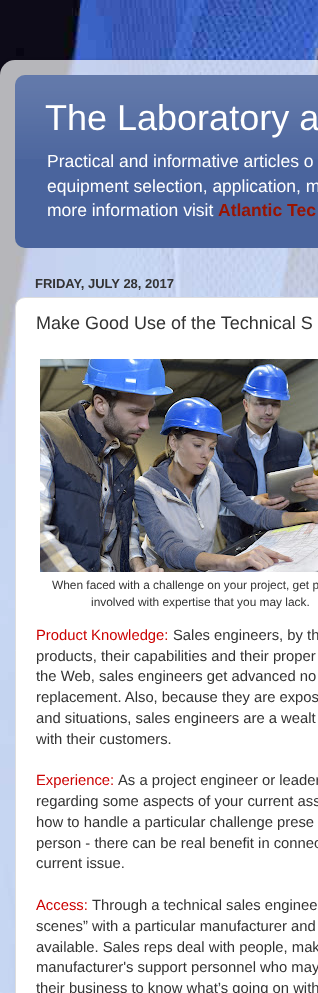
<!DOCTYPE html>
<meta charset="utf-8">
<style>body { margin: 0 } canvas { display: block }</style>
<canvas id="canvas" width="318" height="993"></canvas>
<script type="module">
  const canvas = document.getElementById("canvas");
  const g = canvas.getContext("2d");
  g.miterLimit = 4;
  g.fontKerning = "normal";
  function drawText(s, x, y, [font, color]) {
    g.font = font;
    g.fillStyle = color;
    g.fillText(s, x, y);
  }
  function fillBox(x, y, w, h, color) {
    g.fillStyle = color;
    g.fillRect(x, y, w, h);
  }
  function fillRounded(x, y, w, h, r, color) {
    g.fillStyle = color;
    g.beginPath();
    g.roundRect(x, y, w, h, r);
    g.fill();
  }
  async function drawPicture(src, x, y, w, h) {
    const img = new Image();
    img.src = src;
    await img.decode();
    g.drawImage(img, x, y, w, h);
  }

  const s1 = ["36px Liberation Sans", "#FFFFFF"];
  const s2 = ["17.5px Liberation Sans", "#FFFFFF"];
  const s3 = ["bold 17.5px Liberation Sans", "#991300"];
  const s4 = ["bold 13px Liberation Sans", "#333333"];
  const s5 = ["18px Liberation Sans", "#333333"];
  const s6 = ["11.9px Liberation Sans", "#333333"];
  const s7 = ["14.8px Liberation Sans", "#CC0000"];
  const s8 = ["14.8px Liberation Sans", "#333333"];

  fillBox(0, 0, 318, 993, "#FFFFFF");
  await drawPicture("pic1.png", 0, 0, 318, 993);
  g.save();
  g.beginPath();
  g.moveTo(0, 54);
  g.lineTo(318, 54);
  g.lineTo(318, 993);
  g.lineTo(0, 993);
  g.closePath();
  g.moveTo(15, 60);
  g.lineTo(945, 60);
  g.bezierCurveTo(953.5, 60, 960, 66.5, 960, 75);
  g.lineTo(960, 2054);
  g.bezierCurveTo(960, 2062.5, 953.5, 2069, 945, 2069);
  g.lineTo(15, 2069);
  g.bezierCurveTo(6.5, 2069, 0, 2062.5, 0, 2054);
  g.lineTo(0, 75);
  g.bezierCurveTo(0, 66.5, 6.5, 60, 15, 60);
  g.closePath();
  g.clip("evenodd");
  g.fillStyle = "rgba(0, 0, 0, 0.15)";
  g.filter = "blur(1.5px)";
  g.beginPath();
  g.roundRect(0, 60, 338, 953, 15);
  g.fill();
  g.filter = "none";
  g.restore();
  await drawPicture("pic2.png", 0, 60, 318, 933);
  fillRounded(15, 75, 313, 173, 10, "#4A649D");
  await drawPicture("pic3.png", 15, 75, 303, 84);
  drawText("The Laboratory a", 45, 130, s1);
  drawText("Practical and informative articles o", 47, 167, s2);
  drawText("equipment selection, application, m", 47, 192, s2);
  drawText("more information visit", 47, 216, s2);
  drawText("Atlantic Tec", 218, 216, s3);
  drawText("FRIDAY, JULY 28, 2017", 35, 288, s4);
  g.fillStyle = "#FFFFFF";
  g.beginPath();
  g.roundRect(15.5, 297.5, 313, 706, 9.5);
  g.fill();
  g.strokeStyle = "#DDDDDD";
  g.stroke();
  drawText("Make Good Use of the Technical S", 36, 329, s5);
  await drawPicture("pic4.png", 40, 359, 278, 213);
  drawText("When faced with a challenge on your project, get p", 52, 589, s6);
  drawText("involved with expertise that you may lack.", 91, 606, s6);
  drawText("Product Knowledge:", 36, 640, s7);
  drawText("Sales engineers, by th", 173, 640, s8);
  drawText("products, their capabilities and their proper", 36, 661, s8);
  drawText("the Web, sales engineers get advanced no", 36, 681, s8);
  drawText("replacement. Also, because they are expos", 36, 702, s8);
  drawText("and situations, sales engineers are a wealt", 36, 723, s8);
  drawText("with their customers.", 36, 744, s8);
  drawText("Experience:", 36, 785, s7);
  drawText("As a project engineer or leader", 118, 785, s8);
  drawText("regarding some aspects of your current ass", 36, 806, s8);
  drawText("how to handle a particular challenge prese", 36, 827, s8);
  drawText("person - there can be real benefit in connec", 36, 848, s8);
  drawText("current issue.", 36, 868, s8);
  drawText("Access:", 36, 910, s7);
  drawText("Through a technical sales enginee", 92, 910, s8);
  drawText("scenes” with a particular manufacturer and", 36, 931, s8);
  drawText("available. Sales reps deal with people, mak", 36, 952, s8);
  drawText("manufacturer's support personnel who may", 36, 972, s8);
  drawText("their business to know what’s going on with", 36, 993, s8);
</script>
